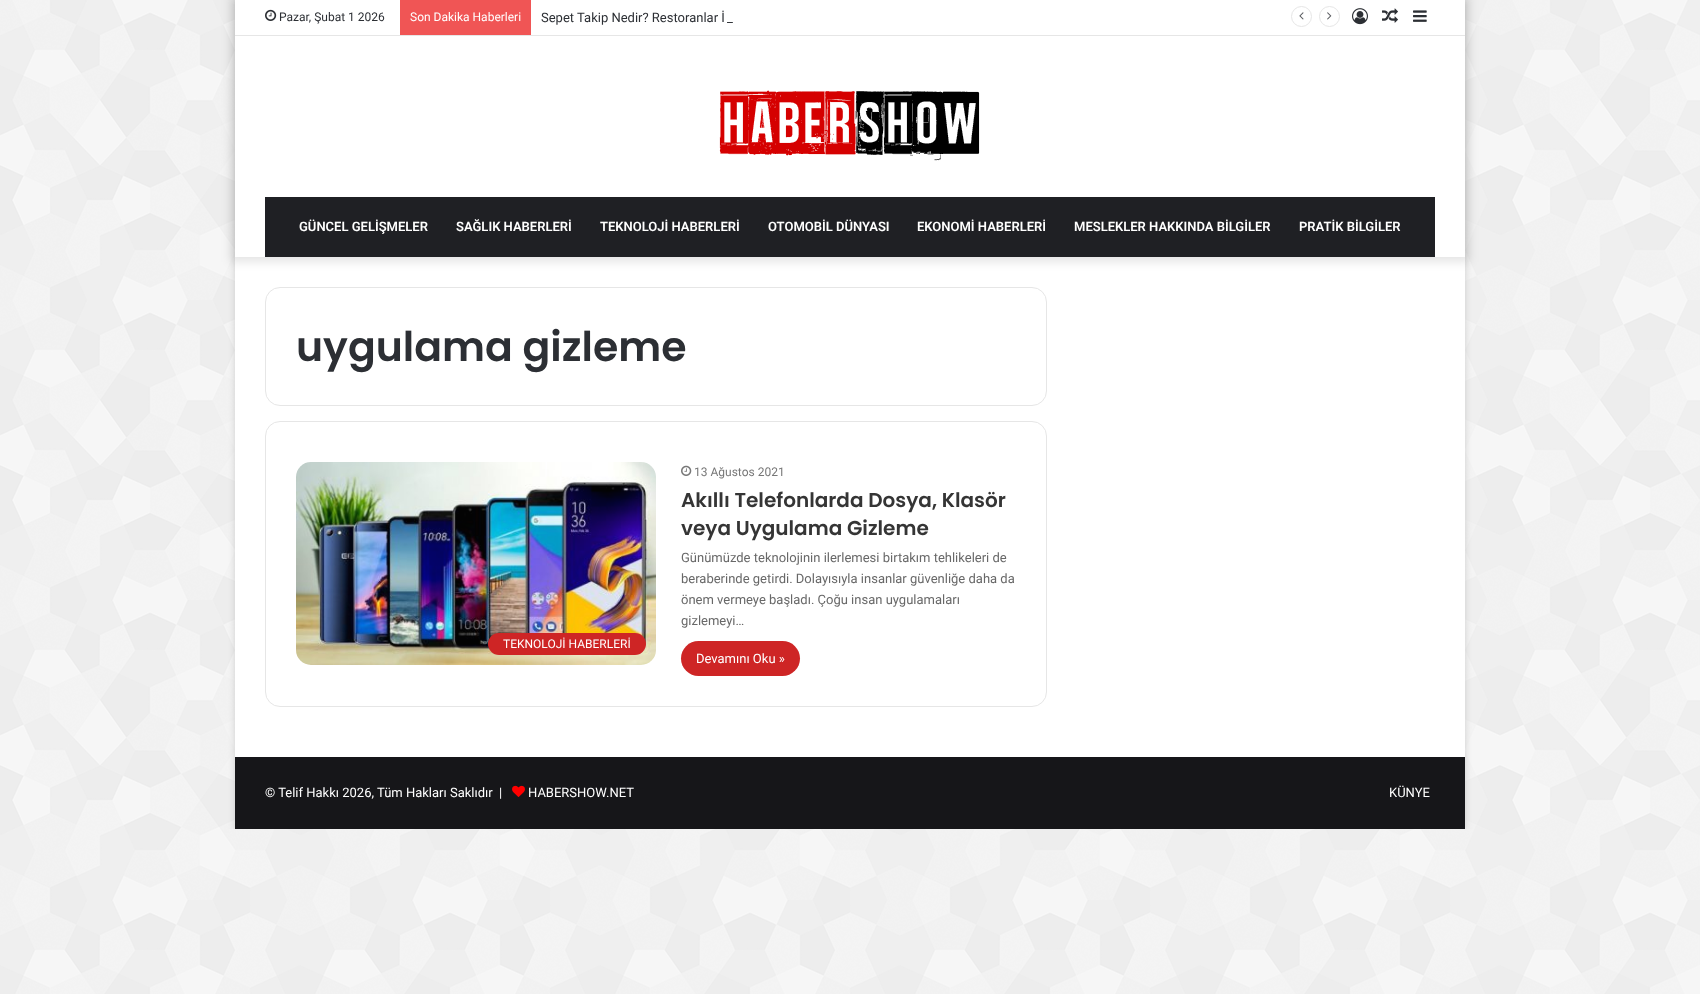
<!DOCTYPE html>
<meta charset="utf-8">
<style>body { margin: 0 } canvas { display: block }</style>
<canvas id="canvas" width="1700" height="994"></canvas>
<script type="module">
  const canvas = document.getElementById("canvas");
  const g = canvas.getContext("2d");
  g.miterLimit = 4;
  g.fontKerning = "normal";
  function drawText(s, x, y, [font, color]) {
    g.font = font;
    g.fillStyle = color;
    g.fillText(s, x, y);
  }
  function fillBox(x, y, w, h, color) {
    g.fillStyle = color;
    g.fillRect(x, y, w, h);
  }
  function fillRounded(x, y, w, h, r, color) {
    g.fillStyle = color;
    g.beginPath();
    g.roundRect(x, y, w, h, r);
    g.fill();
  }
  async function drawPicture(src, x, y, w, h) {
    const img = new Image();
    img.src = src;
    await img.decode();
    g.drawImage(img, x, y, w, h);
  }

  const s1 = ["12px Roboto", "#2C2F34"];
  const s2 = ["12px Roboto", "#FFFFFF"];
  const s3 = ["13px Roboto", "#2C2F34"];
  const s4 = ["600 13px Roboto", "#FFFFFF"];
  const s5 = ["600 41px Poppins", "#2C2F34"];
  const s6 = ["12px Roboto", "#777777"];
  const s7 = ["600 20px Poppins", "#353535"];
  const s8 = ["13px Roboto", "#686868"];
  const s9 = ["13px Roboto", "#FFFFFF"];

  fillBox(0, 0, 1700, 994, "#F7F7F7");
  await drawPicture("pic1.png", 0, 0, 1700, 994);
  g.save();
  g.beginPath();
  g.rect(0, 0, 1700, 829);
  g.clip();
  g.fillStyle = "rgba(171, 171, 171, 0.5)";
  g.filter = "blur(3.5px)";
  g.beginPath();
  g.rect(235, 1, 1230, 829);
  g.fill();
  g.filter = "none";
  g.restore();
  fillBox(235, 0, 1230, 757, "#FFFFFF");
  g.save();
  g.beginPath();
  g.moveTo(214, 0);
  g.lineTo(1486, 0);
  g.lineTo(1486, 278);
  g.lineTo(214, 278);
  g.closePath();
  g.moveTo(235, 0);
  g.lineTo(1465, 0);
  g.lineTo(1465, 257);
  g.lineTo(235, 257);
  g.closePath();
  g.clip("evenodd");
  g.fillStyle = "rgba(0, 0, 0, 0.1)";
  g.filter = "blur(5px)";
  g.beginPath();
  g.rect(230, -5, 1240, 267);
  g.fill();
  g.filter = "none";
  g.restore();
  fillBox(235, 35, 1230, 1, "#E6E6E6");
  await drawPicture("pic2.png", 265, 9, 12, 12);
  drawText("Pazar, Şubat 1 2026", 279, 21, s1);
  fillBox(400, 0, 131, 35, "#F05555");
  drawText("Son Dakika Haberleri", 410, 21, s2);
  drawText("Sepet Takip Nedir? Restoranlar İ", 541, 22, s3);
  drawText("_", 727, 22, s3);
  g.beginPath();
  g.arc(1301.5, 16.5, 10, 0, Math.PI * 2);
  g.strokeStyle = "#E6E6E6";
  g.stroke();
  await drawPicture("pic3.png", 1299, 12, 5, 8);
  g.beginPath();
  g.arc(1329.5, 16.5, 10, 0, Math.PI * 2);
  g.stroke();
  await drawPicture("pic4.png", 1327, 12, 5, 8);
  await drawPicture("pic5.png", 1352, 8, 16, 17);
  await drawPicture("pic6.png", 1382, 8, 16, 15);
  await drawPicture("pic7.png", 1413, 10, 14, 12);
  await drawPicture("pic8.png", 719, 90, 261, 71);
  fillBox(265, 197, 1170, 60, "#1F2024");
  drawText("GÜNCEL GELİŞMELER", 299, 231, s4);
  drawText("SAĞLIK HABERLERİ", 456, 231, s4);
  drawText("TEKNOLOJİ HABERLERİ", 600, 231, s4);
  drawText("OTOMOBİL DÜNYASI", 768, 231, s4);
  drawText("EKONOMİ HABERLERİ", 917, 231, s4);
  drawText("MESLEKLER HAKKINDA BİLGİLER", 1074, 231, s4);
  drawText("PRATİK BİLGİLER", 1299, 231, s4);
  g.beginPath();
  g.roundRect(265.5, 287.5, 781, 118, 14.5);
  g.stroke();
  drawText("uygulama gizleme", 296, 361, s5);
  g.beginPath();
  g.roundRect(265.5, 421.5, 781, 285, 14.5);
  g.stroke();
  await drawPicture("pic9.png", 296, 462, 360, 203);
  fillRounded(488, 633, 158, 22, 11, "#CE2525");
  drawText("TEKNOLOJİ HABERLERİ", 503, 648, s2);
  await drawPicture("pic10.png", 681, 465, 11, 11);
  drawText("13 Ağustos 2021", 694, 476, s6);
  drawText("Akıllı Telefonlarda Dosya, Klasör", 681, 507, s7);
  drawText("veya Uygulama Gizleme", 681, 535, s7);
  drawText("Günümüzde teknolojinin ilerlemesi birtakım tehlikeleri de", 681, 562, s8);
  drawText("beraberinde getirdi. Dolayısıyla insanlar güvenliğe daha da", 681, 583, s8);
  drawText("önem vermeye başladı. Çoğu insan uygulamaları", 681, 604, s8);
  drawText("gizlemeyi…", 681, 625, s8);
  fillRounded(681, 641, 119, 35, 17.5, "#CE2525");
  drawText("Devamını Oku »", 696, 663, s9);
  fillBox(235, 757, 1230, 72, "#161619");
  drawText("© Telif Hakkı 2026, Tüm Hakları Saklıdır  |", 265, 797, s9);
  await drawPicture("pic11.png", 512, 785, 13, 12);
  drawText("HABERSHOW.NET", 528, 797, s9);
  drawText("KÜNYE", 1389, 797, s9);
</script>
